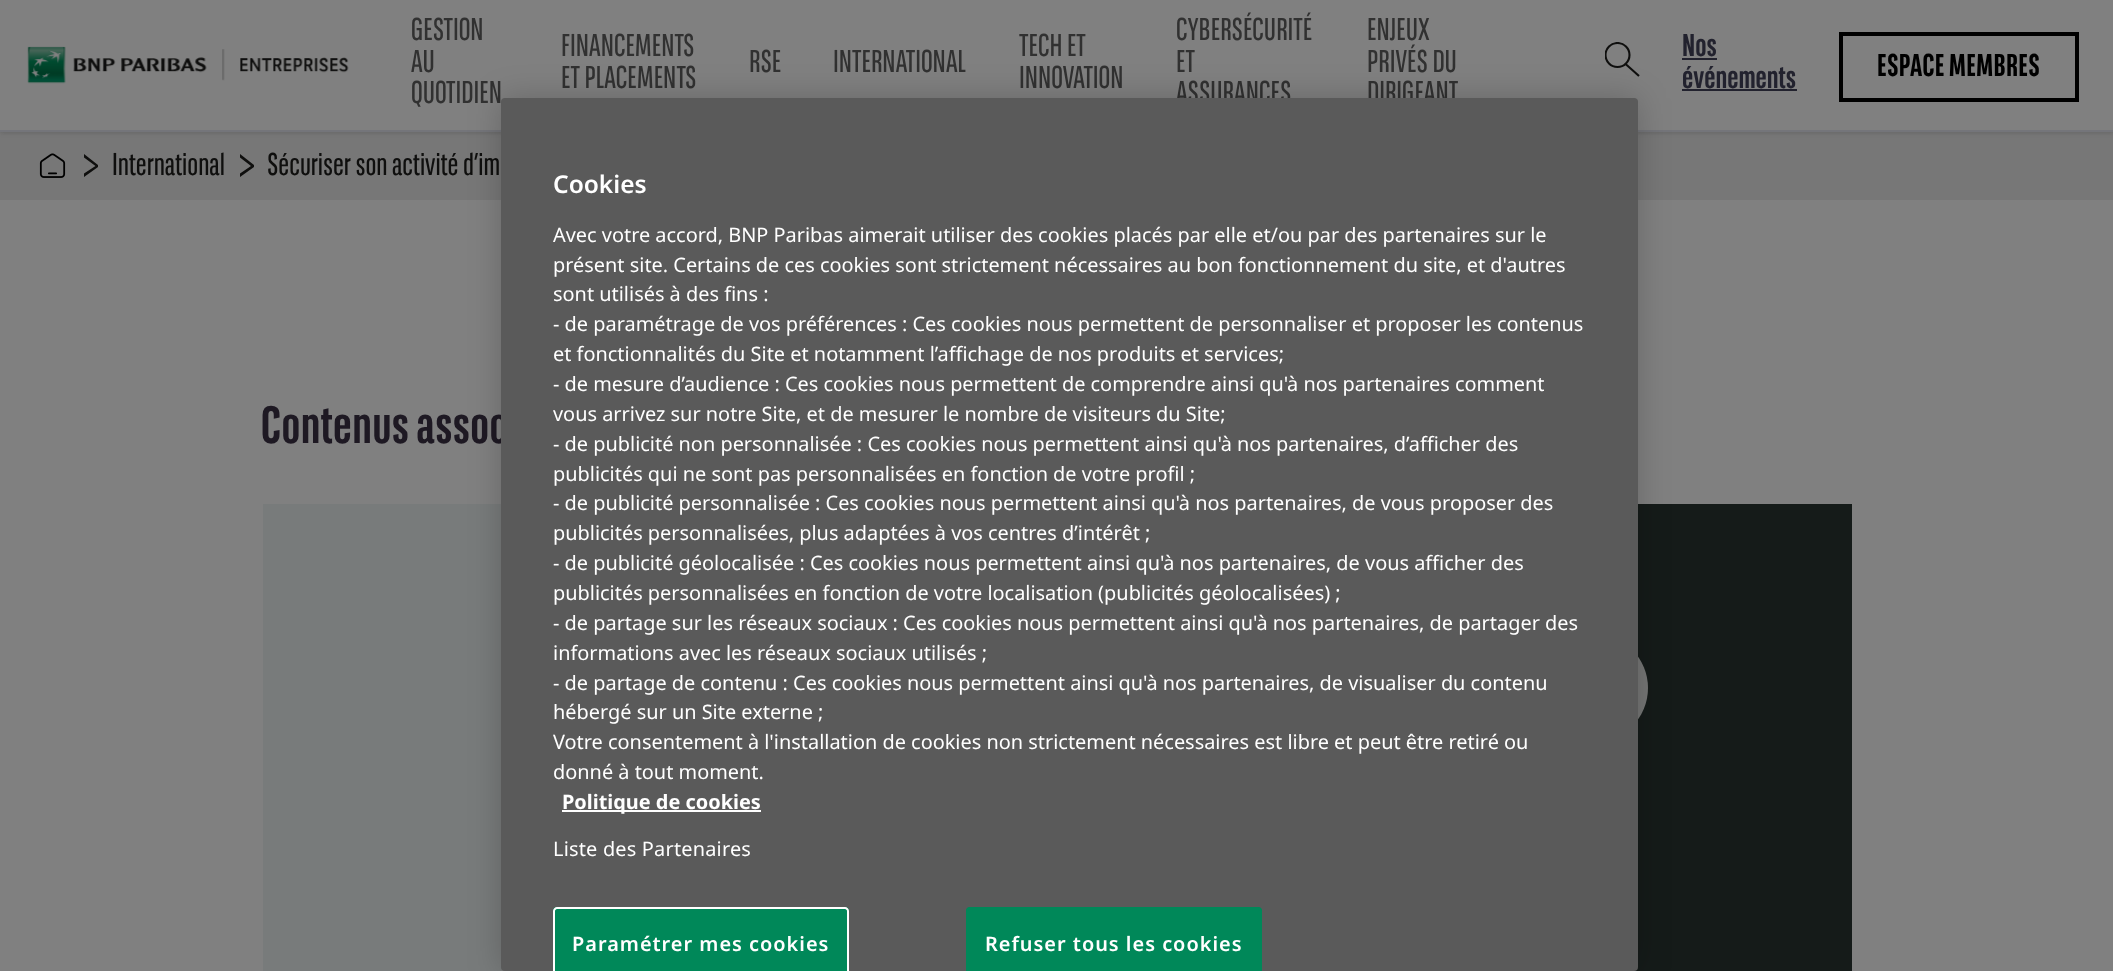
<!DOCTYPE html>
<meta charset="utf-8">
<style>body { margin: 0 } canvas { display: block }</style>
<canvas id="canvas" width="2113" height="971"></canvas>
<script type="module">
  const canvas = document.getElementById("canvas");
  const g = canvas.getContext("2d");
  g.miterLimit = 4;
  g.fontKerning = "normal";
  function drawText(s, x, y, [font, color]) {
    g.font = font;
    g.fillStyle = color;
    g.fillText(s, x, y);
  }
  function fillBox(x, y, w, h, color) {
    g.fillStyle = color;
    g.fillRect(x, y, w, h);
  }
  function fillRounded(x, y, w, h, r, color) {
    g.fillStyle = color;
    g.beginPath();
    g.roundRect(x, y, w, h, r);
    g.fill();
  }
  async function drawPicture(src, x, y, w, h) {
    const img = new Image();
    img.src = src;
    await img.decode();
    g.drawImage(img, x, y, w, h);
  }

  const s1 = ["31.5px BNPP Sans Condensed", "#313131"];
  const s2 = ["bold 31.5px BNPP Sans Condensed", "#22222E"];
  const s3 = ["bold 31.5px BNPP Sans Condensed", "#000000"];
  const s4 = ["31.5px BNPP Sans Condensed", "#0F0F0E"];
  const s5 = ["bold 52.5px BNPP Sans Condensed", "#1E1923"];
  const s6 = ["600 24.5px Noto Sans", "#FFFFFF"];
  const s7 = ["19.92px Noto Sans", "#FFFFFF"];
  const s8 = ["bold 19.92px Noto Sans", "#FFFFFF"];
  const s9 = ["600 19.92px Noto Sans", "#FFFFFF"];

  fillBox(0, 0, 2113, 971, "#808080");
  fillBox(0, 132, 2113, 68, "#777777");
  g.fillStyle = "rgba(0, 0, 0, 0.1)";
  g.filter = "blur(2px)";
  g.beginPath();
  g.rect(2, 4, 2110, 127);
  g.fill();
  g.filter = "none";
  g.filter = "blur(2.5px)";
  g.beginPath();
  g.rect(0, 2, 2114, 131);
  g.fill();
  g.filter = "none";
  fillBox(0, 0, 2113, 130, "#808080");
  fillBox(0, 130, 2113, 2, "#74757A");
  await drawPicture("pic1.png", 27, 46, 322, 38);
  drawText("GESTION", 411, 40, s1);
  drawText("AU", 411, 72, s1);
  drawText("QUOTIDIEN", 411, 103, s1);
  drawText("FINANCEMENTS", 561, 56, s1);
  drawText("ET PLACEMENTS", 561, 88, s1);
  drawText("RSE", 749, 72, s1);
  drawText("INTERNATIONAL", 833, 72, s1);
  drawText("TECH ET", 1019, 56, s1);
  drawText("INNOVATION", 1019, 88, s1);
  drawText("CYBERSÉCURITÉ", 1176, 40, s1);
  drawText("ET", 1176, 72, s1);
  drawText("ASSURANCES", 1176, 103, s1);
  drawText("ENJEUX", 1367, 40, s1);
  drawText("PRIVÉS DU", 1367, 72, s1);
  drawText("DIRIGEANT", 1367, 103, s1);
  g.beginPath();
  g.moveTo(1625, 63.5);
  g.lineTo(1639, 76);
  g.strokeStyle = "#0F0F0E";
  g.lineWidth = 2.1;
  g.stroke();
  g.save();
  g.beginPath();
  g.rect(1605, 42, 35, 37);
  g.clip();
  g.beginPath();
  g.arc(1617.5, 55, 12, 0, Math.PI * 2);
  g.stroke();
  g.restore();
  drawText("Nos", 1682, 56, s2);
  fillBox(1682, 58, 35, 2, "#22222E");
  drawText("événements", 1682, 88, s2);
  fillBox(1682, 89, 115, 2, "#22222E");
  g.strokeStyle = "#000000";
  g.lineWidth = 4;
  g.strokeRect(1841, 34, 236, 66);
  g.letterSpacing = "0.25px";
  drawText("ESPACE MEMBRES", 1877, 76, s3);
  await drawPicture("pic2.png", 39, 153, 27, 25);
  g.fillStyle = "#0F0F0E";
  g.beginPath();
  g.moveTo(84, 173.5);
  g.lineTo(95.5, 166);
  g.lineTo(84, 157.5);
  g.lineTo(84, 154);
  g.lineTo(98, 165);
  g.lineTo(98, 167);
  g.lineTo(84, 177);
  g.closePath();
  g.fill();
  g.letterSpacing = "0px";
  drawText("International", 112, 175, s4);
  g.beginPath();
  g.moveTo(240, 173.5);
  g.lineTo(251, 166);
  g.lineTo(240, 157.5);
  g.lineTo(240, 154);
  g.lineTo(254, 165);
  g.lineTo(254, 167);
  g.lineTo(240, 177);
  g.closePath();
  g.fill();
  drawText("Sécuriser son activité d’im", 267, 175, s4);
  g.letterSpacing = "0.4px";
  drawText("Contenus assoc", 261, 443, s5);
  fillBox(263, 504, 242, 467, "#787B7B");
  fillBox(1634, 504, 218, 467, "#151B19");
  g.fillStyle = "#757675";
  g.beginPath();
  g.arc(1594, 688, 54, 0, Math.PI * 2);
  g.fill();
  g.fillStyle = "rgba(0, 0, 0, 0.2)";
  g.filter = "blur(16px)";
  g.beginPath();
  g.roundRect(501, 98, 1137, 873, 4);
  g.fill();
  g.filter = "none";
  fillRounded(501, 98, 1137, 873, 4, "#5A5A5A");
  g.letterSpacing = "0px";
  drawText("Cookies", 553, 193, s6);
  drawText("Avec votre accord, BNP Paribas aimerait utiliser des cookies placés par elle et/ou par des partenaires sur le", 553, 242, s7);
  drawText("présent site. Certains de ces cookies sont strictement nécessaires au bon fonctionnement du site, et d'autres", 553, 272, s7);
  drawText("sont utilisés à des fins :", 553, 301, s7);
  drawText("- de paramétrage de vos préférences : Ces cookies nous permettent de personnaliser et proposer les contenus", 553, 331, s7);
  drawText("et fonctionnalités du Site et notamment l’affichage de nos produits et services;", 553, 361, s7);
  drawText("- de mesure d’audience : Ces cookies nous permettent de comprendre ainsi qu'à nos partenaires comment", 553, 391, s7);
  drawText("vous arrivez sur notre Site, et de mesurer le nombre de visiteurs du Site;", 553, 421, s7);
  drawText("- de publicité non personnalisée : Ces cookies nous permettent ainsi qu'à nos partenaires, d’afficher des", 553, 451, s7);
  drawText("publicités qui ne sont pas personnalisées en fonction de votre profil ;", 553, 481, s7);
  drawText("- de publicité personnalisée : Ces cookies nous permettent ainsi qu'à nos partenaires, de vous proposer des", 553, 510, s7);
  drawText("publicités personnalisées, plus adaptées à vos centres d’intérêt ;", 553, 540, s7);
  drawText("- de publicité géolocalisée : Ces cookies nous permettent ainsi qu'à nos partenaires, de vous afficher des", 553, 570, s7);
  drawText("publicités personnalisées en fonction de votre localisation (publicités géolocalisées) ;", 553, 600, s7);
  drawText("- de partage sur les réseaux sociaux : Ces cookies nous permettent ainsi qu'à nos partenaires, de partager des", 553, 630, s7);
  drawText("informations avec les réseaux sociaux utilisés ;", 553, 660, s7);
  drawText("- de partage de contenu : Ces cookies nous permettent ainsi qu'à nos partenaires, de visualiser du contenu", 553, 690, s7);
  drawText("hébergé sur un Site externe ;", 553, 719, s7);
  drawText("Votre consentement à l'installation de cookies non strictement nécessaires est libre et peut être retiré ou", 553, 749, s7);
  drawText("donné à tout moment.", 553, 779, s7);
  fillBox(562, 810, 199, 2, "#FFFFFF");
  drawText("Politique de cookies", 562, 809, s8);
  g.letterSpacing = "0.2px";
  drawText("Liste des Partenaires", 553, 856, s7);
  g.fillStyle = "#008859";
  g.beginPath();
  g.roundRect(553, 907, 296, 64, [4, 4, 0, 0]);
  g.fill();
  g.fillStyle = "#FFFFFF";
  g.beginPath();
  g.moveTo(557, 907);
  g.bezierCurveTo(555, 907, 553, 909, 553, 911);
  g.lineTo(553, 971);
  g.lineTo(555, 971);
  g.lineTo(555, 911);
  g.bezierCurveTo(555, 910, 556, 909, 557, 909);
  g.lineTo(845, 909);
  g.bezierCurveTo(846, 909, 847, 910, 847, 911);
  g.lineTo(847, 971);
  g.lineTo(849, 971);
  g.lineTo(849, 911);
  g.bezierCurveTo(849, 909, 847, 907, 845, 907);
  g.closePath();
  g.fill();
  g.letterSpacing = "1px";
  drawText("Paramétrer mes cookies", 572, 951, s9);
  g.fillStyle = "#008859";
  g.beginPath();
  g.roundRect(966, 907, 296, 64, [4, 4, 0, 0]);
  g.fill();
  g.beginPath();
  g.moveTo(970, 907);
  g.bezierCurveTo(968, 907, 966, 909, 966, 911);
  g.lineTo(966, 971);
  g.lineTo(968, 971);
  g.lineTo(968, 911);
  g.bezierCurveTo(968, 910, 969, 909, 970, 909);
  g.lineTo(1258, 909);
  g.bezierCurveTo(1259, 909, 1260, 910, 1260, 911);
  g.lineTo(1260, 971);
  g.lineTo(1262, 971);
  g.lineTo(1262, 911);
  g.bezierCurveTo(1262, 909, 1260, 907, 1258, 907);
  g.closePath();
  g.fill();
  drawText("Refuser tous les cookies", 985, 951, s9);
</script>
